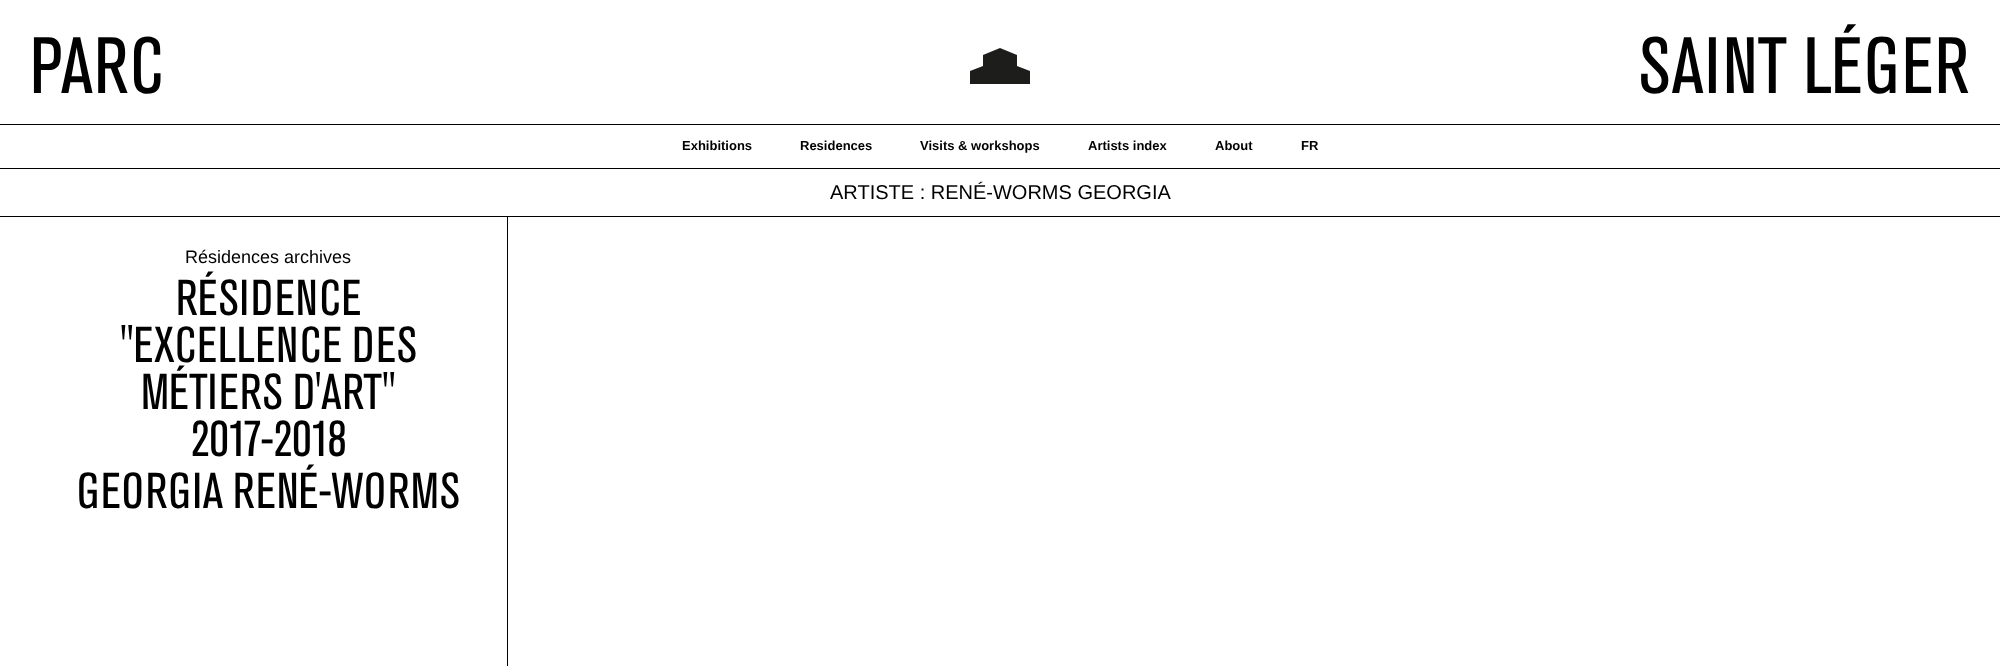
<!DOCTYPE html>
<meta charset="utf-8">
<style>body { margin: 0 } canvas { display: block }</style>
<canvas id="canvas" width="2000" height="666"></canvas>
<script type="module">
  const canvas = document.getElementById("canvas");
  const g = canvas.getContext("2d");
  g.miterLimit = 4;
  g.fontKerning = "normal";
  function drawText(s, x, y, [font, color]) {
    g.font = font;
    g.fillStyle = color;
    g.fillText(s, x, y);
  }
  function fillBox(x, y, w, h, color) {
    g.fillStyle = color;
    g.fillRect(x, y, w, h);
  }

  const s1 = ["79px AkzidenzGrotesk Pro", "#000000"];
  const s2 = ["bold 13px Liberation Sans", "#000000"];
  const s3 = ["20px Liberation Sans", "#000000"];
  const s4 = ["18px Liberation Sans", "#000000"];
  const s5 = ["50px AkzidenzGrotesk Pro", "#000000"];

  fillBox(0, 0, 2000, 666, "#FFFFFF");
  drawText("PARC", 30, 93, s1);
  g.fillStyle = "#1D1D1B";
  g.beginPath();
  g.moveTo(1000, 48);
  g.lineTo(983, 55);
  g.lineTo(983, 66);
  g.lineTo(970, 71);
  g.lineTo(970, 84);
  g.lineTo(1030, 84);
  g.lineTo(1030, 71);
  g.lineTo(1017, 66);
  g.lineTo(1017, 55);
  g.closePath();
  g.fill();
  drawText("SAINT LÉGER", 1639, 93, s1);
  fillBox(0, 124, 2000, 1, "#000000");
  fillBox(0, 168, 2000, 1, "#000000");
  drawText("Exhibitions", 682, 150, s2);
  drawText("Residences", 800, 150, s2);
  drawText("Visits & workshops", 920, 150, s2);
  drawText("Artists index", 1088, 150, s2);
  drawText("About", 1215, 150, s2);
  drawText("FR", 1301, 150, s2);
  fillBox(0, 216, 2000, 1, "#000000");
  drawText("ARTISTE : RENÉ-WORMS GEORGIA", 830, 199, s3);
  fillBox(507, 217, 1, 449, "#000000");
  drawText("Résidences archives", 185, 263, s4);
  drawText("RÉSIDENCE", 176, 315, s5);
  drawText("\"EXCELLENCE DES", 120, 362, s5);
  drawText("MÉTIERS D'ART\"", 141, 409, s5);
  drawText("2017-2018", 191, 456, s5);
  drawText("GEORGIA RENÉ-WORMS", 77, 508, s5);
</script>
